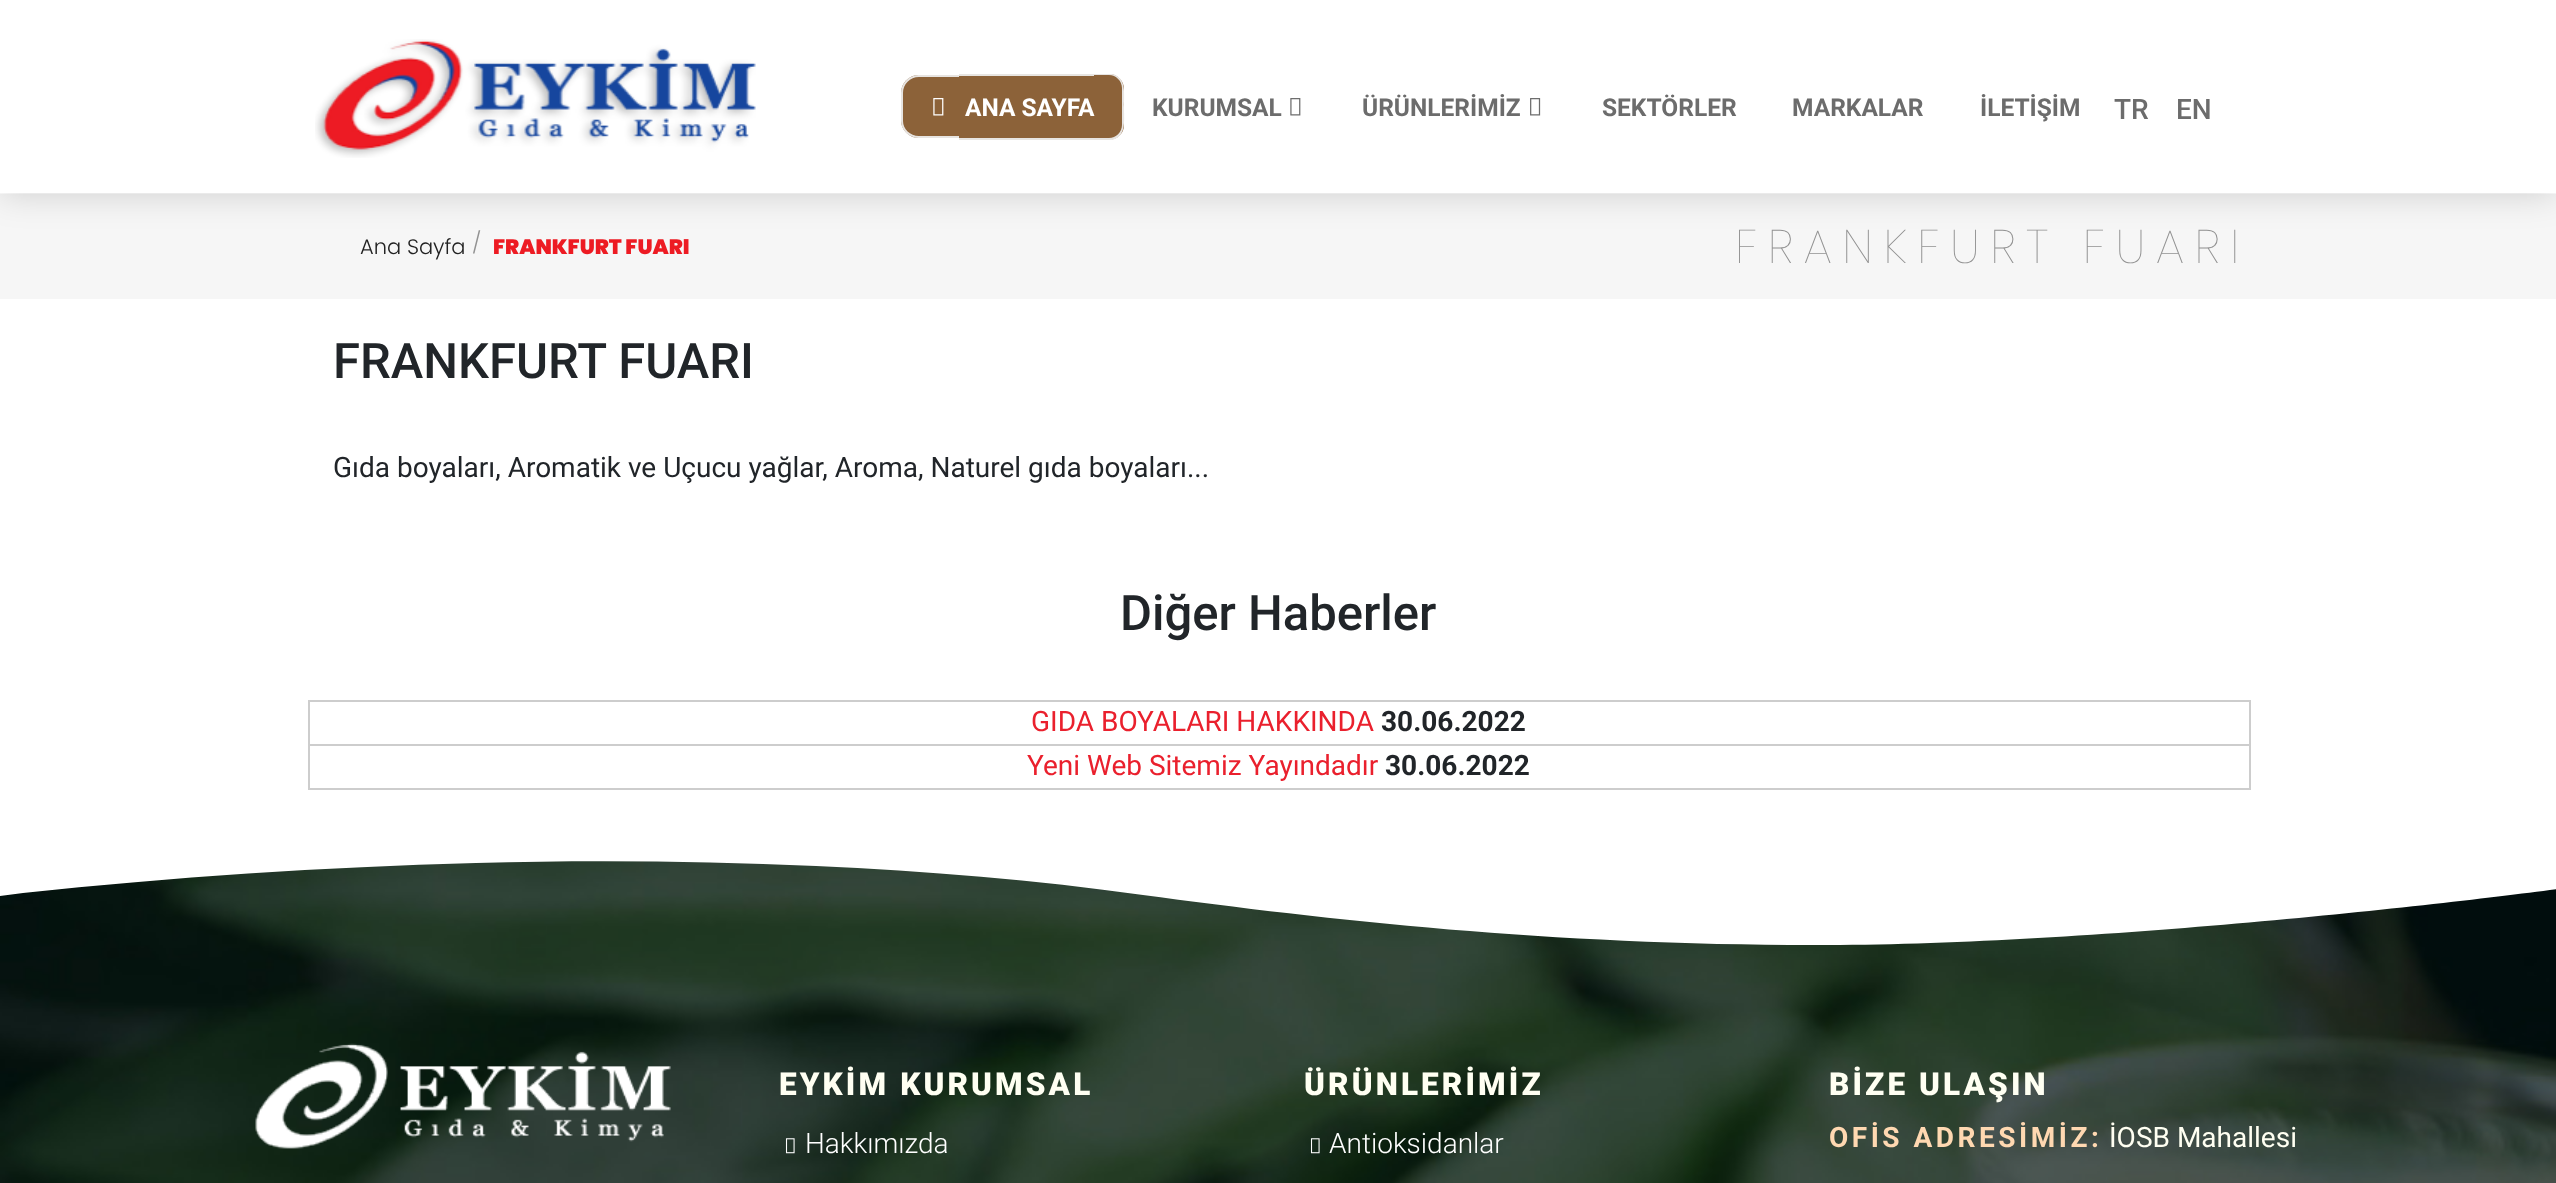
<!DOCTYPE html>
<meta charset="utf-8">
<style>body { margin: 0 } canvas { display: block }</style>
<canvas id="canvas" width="2556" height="1183"></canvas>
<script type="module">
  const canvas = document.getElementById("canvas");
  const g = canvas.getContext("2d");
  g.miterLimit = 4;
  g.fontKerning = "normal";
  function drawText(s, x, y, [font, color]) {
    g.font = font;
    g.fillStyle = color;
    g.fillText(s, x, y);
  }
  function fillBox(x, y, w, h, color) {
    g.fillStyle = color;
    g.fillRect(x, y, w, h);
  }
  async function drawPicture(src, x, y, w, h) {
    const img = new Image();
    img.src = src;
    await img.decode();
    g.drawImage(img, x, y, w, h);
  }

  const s1 = ["bold 24.5px Roboto", "#FFFFFF"];
  const s2 = ["bold 24.5px Roboto", "#6C6C6C"];
  const s3 = ["500 28px Roboto", "#6C6C6C"];
  const s4 = ["300 21px Poppins", "#222222"];
  const s5 = ["300 21px Poppins", "#929292"];
  const s6 = ["900 21px Poppins", "#ED1B23"];
  const s7 = ["200 47.25px Poppins", "#929292"];
  const s8 = ["500 49px Roboto", "#212529"];
  const s9 = ["28px Roboto", "#212529"];
  const s10 = ["28px Roboto", "#EA202D"];
  const s11 = ["bold 28px Roboto", "#212529"];
  const s12 = ["900 31.5px Roboto", "#FFFFF2"];
  const s13 = ["300 28px Roboto", "#FFFFFF"];
  const s14 = ["bold 28px Roboto", "#FFD8B1"];
  const s15 = ["28px Roboto", "#FFFFF2"];

  fillBox(0, 0, 2556, 1183, "#FFFFFF");
  fillBox(0, 194, 2556, 105, "#F6F6F6");
  g.fillStyle = "rgba(0, 0, 0, 0.17)";
  g.filter = "blur(17.5px)";
  g.beginPath();
  g.rect(0, 0, 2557, 193);
  g.fill();
  g.filter = "none";
  fillBox(0, 0, 2556, 193, "#FFFFFF");
  await drawPicture("pic1.png", 315, 39, 441, 119);
  g.fillStyle = "#8C6239";
  g.beginPath();
  g.roundRect(901, 75, 58, 63, [18, 0, 0, 18]);
  g.fill();
  g.fillStyle = "rgba(238, 238, 238, 0.93)";
  g.beginPath();
  g.moveTo(919, 75);
  g.lineTo(959, 75);
  g.lineTo(959, 138);
  g.lineTo(919, 138);
  g.bezierCurveTo(909, 138, 901, 130, 901, 121);
  g.lineTo(901, 93);
  g.bezierCurveTo(901, 83, 909, 75, 919, 75);
  g.closePath();
  g.moveTo(919, 77);
  g.lineTo(959, 77);
  g.lineTo(959, 136);
  g.lineTo(919, 136);
  g.bezierCurveTo(910, 136, 903, 129, 903, 121);
  g.lineTo(903, 93);
  g.bezierCurveTo(903, 84, 910, 77, 919, 77);
  g.closePath();
  g.fill("evenodd");
  fillBox(959, 76, 135, 62, "#8C6239");
  fillBox(959, 74, 135, 2, "#E7E5E2");
  fillBox(959, 138, 135, 2, "#E7E5E2");
  g.fillStyle = "#8C6239";
  g.beginPath();
  g.roundRect(1094, 74, 30, 66, [0, 15, 15, 0]);
  g.fill();
  g.fillStyle = "rgba(238, 238, 238, 0.93)";
  g.beginPath();
  g.moveTo(1094, 74);
  g.lineTo(1112, 74);
  g.bezierCurveTo(1127, 77, 1124, 95, 1124, 107);
  g.bezierCurveTo(1124, 118, 1127, 137, 1112, 140);
  g.lineTo(1094, 140);
  g.closePath();
  g.moveTo(1094, 75);
  g.lineTo(1109, 75);
  g.bezierCurveTo(1116, 75, 1122, 81, 1122, 88);
  g.lineTo(1122, 125);
  g.bezierCurveTo(1122, 132, 1116, 138, 1109, 138);
  g.lineTo(1094, 138);
  g.closePath();
  g.fill("evenodd");
  await drawPicture("pic2.png", 933, 98, 11, 18);
  drawText("ANA SAYFA", 965, 116, s1);
  drawText("KURUMSAL", 1152, 116, s2);
  await drawPicture("pic3.png", 1290, 98, 11, 18);
  drawText("ÜRÜNLERİMİZ", 1362, 116, s2);
  await drawPicture("pic4.png", 1530, 98, 11, 18);
  drawText("SEKTÖRLER", 1602, 116, s2);
  drawText("MARKALAR", 1792, 116, s2);
  drawText("İLETİŞİM", 1980, 116, s2);
  drawText("TR", 2114, 119, s3);
  drawText("EN", 2176, 119, s3);
  drawText("Ana Sayfa", 360, 254, s4);
  drawText("/", 472, 250, s5);
  drawText("FRANKFURT FUARI", 493, 254, s6);
  g.letterSpacing = "10.5px";
  drawText("FRANKFURT FUARI", 1735, 263, s7);
  g.letterSpacing = "0px";
  drawText("FRANKFURT FUARI", 333, 378, s8);
  drawText("Gıda boyaları, Aromatik ve Uçucu yağlar, Aroma, Naturel gıda boyaları...", 333, 477, s9);
  drawText("Diğer Haberler", 1120, 630, s8);
  fillBox(308, 700, 1943, 2, "#CDCDCD");
  fillBox(308, 744, 1943, 2, "#CDCDCD");
  fillBox(2249, 744, 2, 45, "#CDCDCD");
  fillBox(2249, 700, 2, 46, "#CDCDCD");
  fillBox(308, 788, 1943, 2, "#CDCDCD");
  fillBox(308, 744, 2, 45, "#CDCDCD");
  fillBox(308, 700, 2, 46, "#CDCDCD");
  drawText("GIDA BOYALARI HAKKINDA", 1031, 731, s10);
  drawText("30.06.2022", 1381, 731, s11);
  drawText("Yeni Web Sitemiz Yayındadır", 1027, 775, s10);
  drawText("30.06.2022", 1385, 775, s11);
  await drawPicture("pic5.png", 0, 861, 2556, 322);
  g.fillStyle = "#FFFFFF";
  g.beginPath();
  g.moveTo(1815, 945);
  g.bezierCurveTo(2081, 945, 2429, 906, 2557, 889);
  g.lineTo(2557, 858);
  g.lineTo(0, 858);
  g.lineTo(0, 896);
  g.lineTo(23, 893);
  g.bezierCurveTo(172, 877, 323, 867, 476, 863);
  g.bezierCurveTo(590, 860, 703, 861, 816, 866);
  g.bezierCurveTo(927, 871, 1036, 880, 1143, 895);
  g.bezierCurveTo(1329, 920, 1549, 945, 1815, 945);
  g.closePath();
  g.fill();
  await drawPicture("pic6.png", 255, 1043, 416, 106);
  g.letterSpacing = "3.1px";
  drawText("EYKİM KURUMSAL", 779, 1095, s12);
  await drawPicture("pic7.png", 785, 1138, 10, 16);
  g.letterSpacing = "0px";
  drawText("Hakkımızda", 805, 1153, s13);
  g.letterSpacing = "3.1px";
  drawText("ÜRÜNLERİMİZ", 1304, 1095, s12);
  await drawPicture("pic8.png", 1310, 1138, 10, 16);
  g.letterSpacing = "0px";
  drawText("Antioksidanlar", 1329, 1153, s13);
  g.letterSpacing = "3.1px";
  drawText("BİZE ULAŞIN", 1829, 1095, s12);
  g.letterSpacing = "3.5px";
  drawText("OFİS ADRESİMİZ:", 1829, 1147, s14);
  g.letterSpacing = "0px";
  drawText("İOSB Mahallesi", 2109, 1147, s15);
</script>
